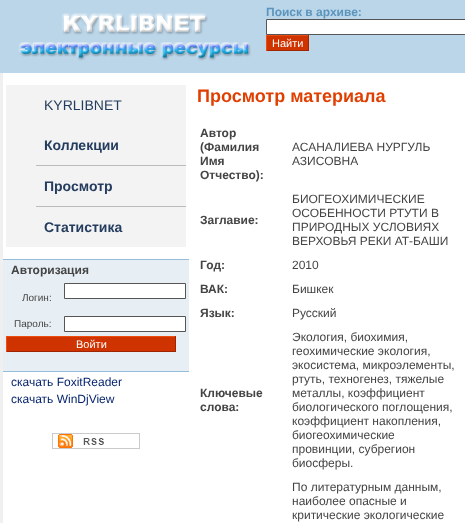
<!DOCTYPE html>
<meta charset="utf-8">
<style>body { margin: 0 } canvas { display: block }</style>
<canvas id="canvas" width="465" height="523"></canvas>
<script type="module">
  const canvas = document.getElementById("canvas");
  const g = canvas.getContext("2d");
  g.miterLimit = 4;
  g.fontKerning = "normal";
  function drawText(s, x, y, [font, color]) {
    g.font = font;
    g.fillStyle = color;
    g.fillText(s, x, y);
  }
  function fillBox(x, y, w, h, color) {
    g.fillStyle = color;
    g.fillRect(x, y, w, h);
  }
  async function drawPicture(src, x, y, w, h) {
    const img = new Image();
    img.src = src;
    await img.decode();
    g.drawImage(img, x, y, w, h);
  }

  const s1 = ["bold 12px Liberation Sans", "#5B94BC"];
  const s2 = ["11px Liberation Sans", "#FFFFFF"];
  const s3 = ["14px Liberation Sans", "#243C5D"];
  const s4 = ["bold 14px Liberation Sans", "#243C5D"];
  const s5 = ["bold 12px Liberation Sans", "#444444"];
  const s6 = ["10px Liberation Sans", "#444444"];
  const s7 = ["12px Liberation Sans", "#001F6B"];
  const s8 = ["bold 18px Liberation Sans", "#E03F02"];
  const s9 = ["12px Liberation Sans", "#444444"];

  fillBox(0, 0, 465, 523, "#FFFFFF");
  fillBox(0, 0, 465, 73, "#BBD6E9");
  await drawPicture("pic1.png", 18, 13, 233, 48);
  drawText("Поиск в архиве:", 266, 16, s1);
  g.fillStyle = "#FFFFFF";
  g.beginPath();
  g.rect(266.5, 19.5, 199, 15);
  g.fill();
  g.strokeStyle = "#555558";
  g.stroke();
  fillBox(267, 36, 41, 14, "#CE3300");
  fillBox(266, 35, 43, 1, "#EE4D10");
  fillBox(308, 35, 1, 16, "#9F2601");
  fillBox(266, 50, 43, 1, "#9F2601");
  fillBox(266, 35, 1, 16, "#EE4D10");
  drawText("Найти", 272, 47, s2);
  fillBox(0, 73, 3, 450, "#F0F0F0");
  fillBox(6, 85, 180, 162, "#F3F3F3");
  drawText("KYRLIBNET", 44, 110, s3);
  drawText("Коллекции", 44, 150, s4);
  fillBox(36, 165, 150, 1, "#BBBBBB");
  drawText("Просмотр", 44, 191, s4);
  fillBox(36, 206, 150, 1, "#BBBBBB");
  drawText("Статистика", 44, 232, s4);
  fillBox(3, 259, 186, 1, "#92BEDB");
  fillBox(3, 260, 186, 111, "#E7EEF4");
  drawText("Авторизация", 11, 274, s5);
  drawText("Логин:", 22, 301, s6);
  g.fillStyle = "#FFFFFF";
  g.beginPath();
  g.rect(64.5, 283.5, 121, 15);
  g.fill();
  g.stroke();
  drawText("Пароль:", 14, 327, s6);
  g.fillStyle = "#FFFFFF";
  g.beginPath();
  g.rect(64.5, 316.5, 121, 15);
  g.fill();
  g.stroke();
  fillBox(7, 337, 168, 14, "#CE3300");
  fillBox(6, 336, 170, 1, "#EE4D10");
  fillBox(175, 336, 1, 16, "#9F2601");
  fillBox(6, 351, 170, 1, "#9F2601");
  fillBox(6, 336, 1, 16, "#EE4D10");
  drawText("Войти", 76, 348, s2);
  fillBox(3, 371, 186, 1, "#92BEDB");
  drawText("скачать FoxitReader", 11, 386, s7);
  drawText("скачать WinDjView", 11, 403, s7);
  await drawPicture("pic2.png", 52, 433, 88, 16);
  drawText("Просмотр материала", 197, 102, s8);
  drawText("Автор", 200, 137, s5);
  drawText("(Фамилия", 200, 151, s5);
  drawText("Имя", 200, 165, s5);
  drawText("Отчество):", 200, 179, s5);
  drawText("АСАНАЛИЕВА НУРГУЛЬ", 292, 151, s9);
  drawText("АЗИСОВНА", 292, 165, s9);
  drawText("Заглавие:", 200, 224, s5);
  drawText("БИОГЕОХИМИЧЕСКИЕ", 292, 203, s9);
  drawText("ОСОБЕННОСТИ РТУТИ В", 292, 217, s9);
  drawText("ПРИРОДНЫХ УСЛОВИЯХ", 292, 231, s9);
  drawText("ВЕРХОВЬЯ РЕКИ АТ-БАШИ", 292, 245, s9);
  drawText("Год:", 200, 269, s5);
  drawText("2010", 292, 269, s9);
  drawText("ВАК:", 200, 293, s5);
  drawText("Бишкек", 292, 293, s9);
  drawText("Язык:", 200, 317, s5);
  drawText("Русский", 292, 317, s9);
  drawText("Ключевые", 200, 397, s5);
  drawText("слова:", 200, 411, s5);
  drawText("Экология, биохимия,", 292, 341, s9);
  drawText("геохимические экология,", 292, 355, s9);
  drawText("экосистема, микроэлементы,", 292, 369, s9);
  drawText("ртуть, техногенез, тяжелые", 292, 383, s9);
  drawText("металлы, коэффициент", 292, 397, s9);
  drawText("биологического поглощения,", 292, 411, s9);
  drawText("коэффициент накопления,", 292, 425, s9);
  drawText("биогеохимические", 292, 439, s9);
  drawText("провинции, субрегион", 292, 453, s9);
  drawText("биосферы.", 292, 467, s9);
  drawText("По литературным данным,", 292, 491, s9);
  drawText("наиболее опасные и", 292, 505, s9);
  drawText("критические экологические", 292, 519, s9);
</script>
